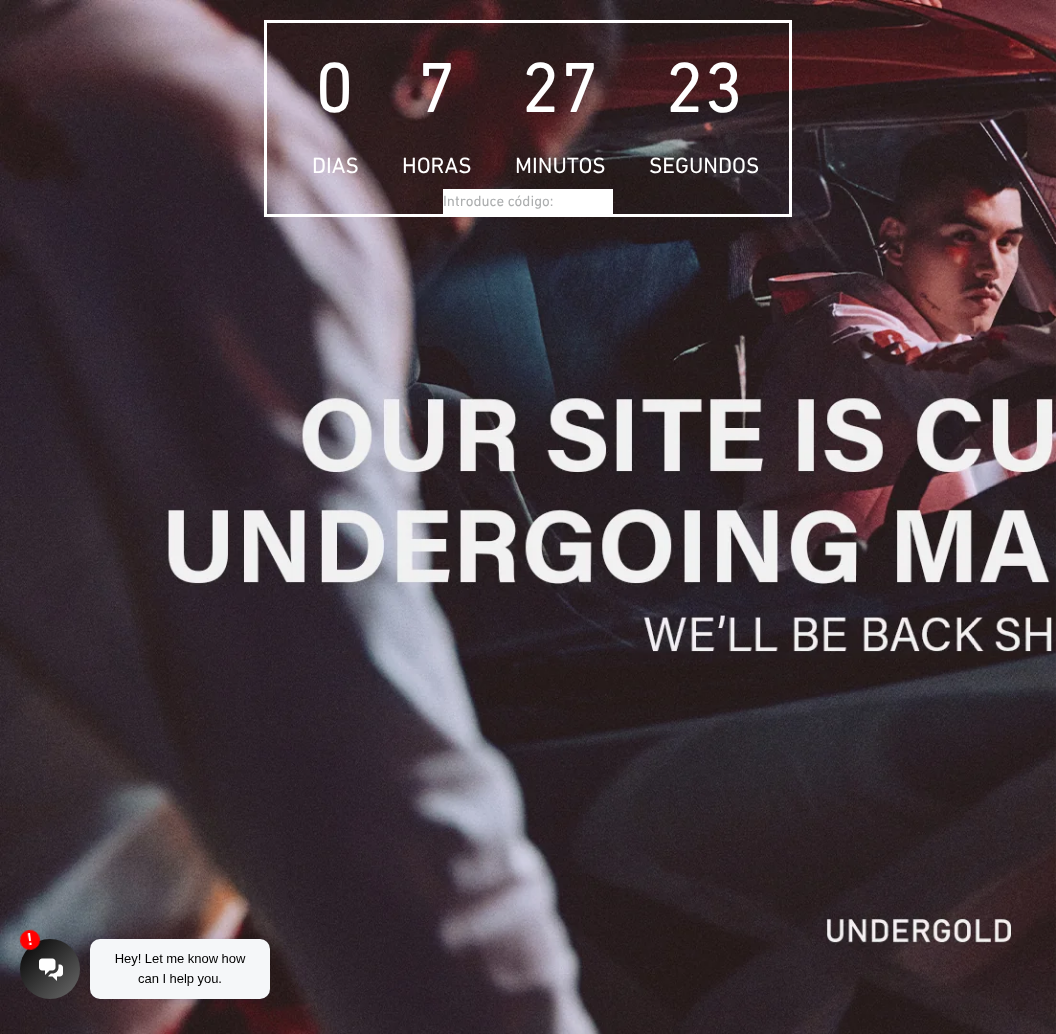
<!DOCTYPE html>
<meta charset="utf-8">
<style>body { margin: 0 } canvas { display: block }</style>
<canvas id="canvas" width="1056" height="1034"></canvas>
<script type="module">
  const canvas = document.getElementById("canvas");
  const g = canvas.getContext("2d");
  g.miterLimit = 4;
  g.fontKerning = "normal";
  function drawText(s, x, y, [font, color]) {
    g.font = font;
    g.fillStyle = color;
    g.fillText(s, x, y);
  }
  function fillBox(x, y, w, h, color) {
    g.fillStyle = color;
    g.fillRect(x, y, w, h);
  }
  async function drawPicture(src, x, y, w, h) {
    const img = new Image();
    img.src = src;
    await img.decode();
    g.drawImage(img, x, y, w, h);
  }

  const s1 = ["72px 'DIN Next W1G'", "#FFFFFF"];
  const s2 = ["22.5px 'DIN Next W1G'", "#FFFFFF"];
  const s3 = ["15px 'DIN Next W1G'", "#ACAEAF"];

  fillBox(0, 0, 1056, 1034, "#FFFFFF");
  await drawPicture("pic1.png", 0, 0, 1056, 1034);
  g.strokeStyle = "#FFFFFF";
  g.lineWidth = 3;
  g.strokeRect(265.5, 21.5, 525, 194);
  drawText("0", 315, 112, s1);
  drawText("DIAS", 312, 173, s2);
  drawText("7", 417, 112, s1);
  drawText("HORAS", 402, 173, s2);
  drawText("27", 521, 112, s1);
  drawText("MINUTOS", 515, 173, s2);
  drawText("23", 665, 112, s1);
  drawText("SEGUNDOS", 649, 173, s2);
  fillBox(443, 189, 170, 25, "#FFFFFF");
  drawText("Introduce código:", 443, 206, s3);
  await drawPicture("pic2.png", 19, 929, 251, 75);
</script>
